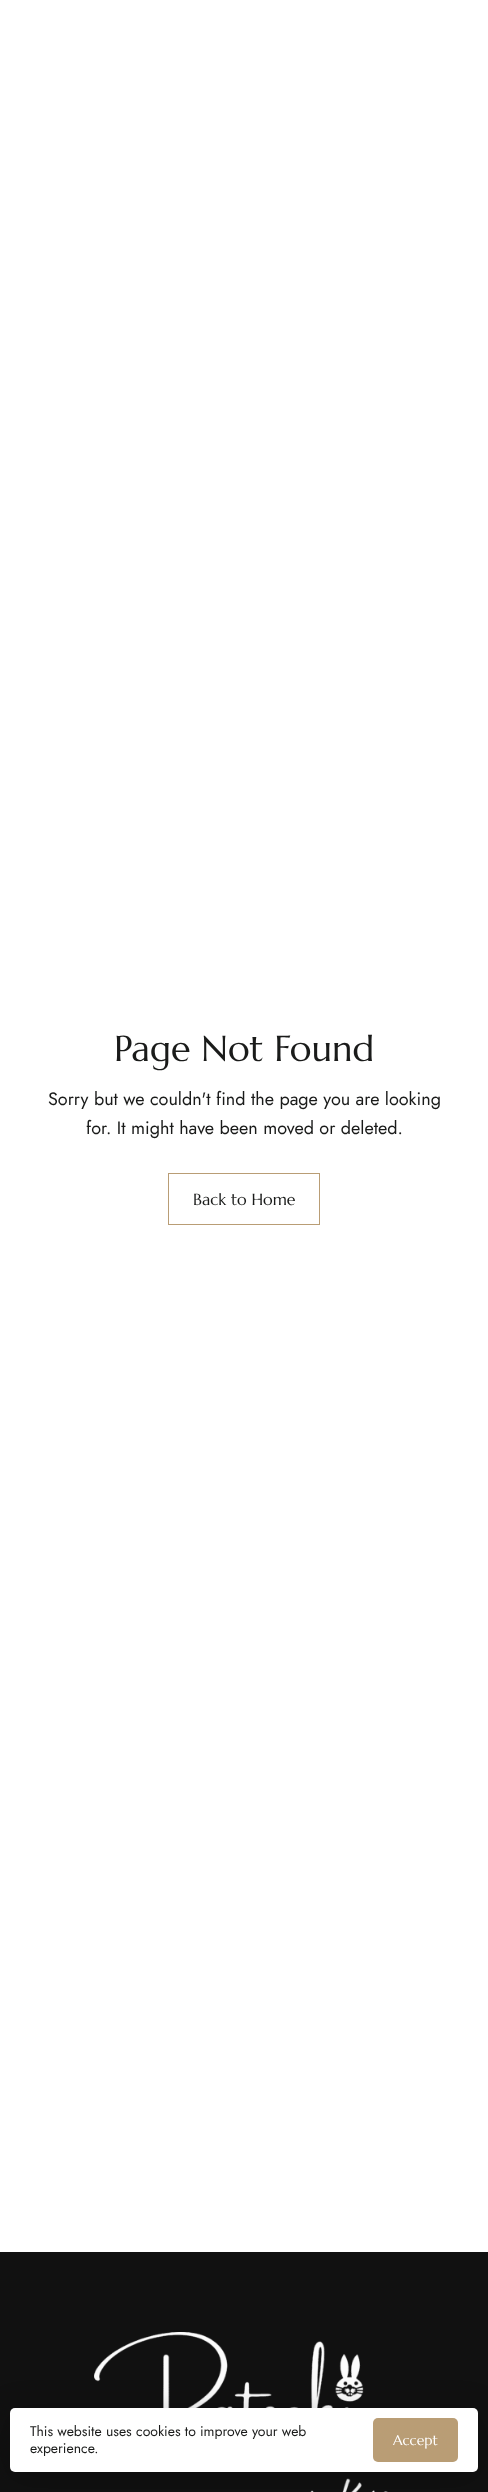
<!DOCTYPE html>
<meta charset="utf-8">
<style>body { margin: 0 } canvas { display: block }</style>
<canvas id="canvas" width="488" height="2492"></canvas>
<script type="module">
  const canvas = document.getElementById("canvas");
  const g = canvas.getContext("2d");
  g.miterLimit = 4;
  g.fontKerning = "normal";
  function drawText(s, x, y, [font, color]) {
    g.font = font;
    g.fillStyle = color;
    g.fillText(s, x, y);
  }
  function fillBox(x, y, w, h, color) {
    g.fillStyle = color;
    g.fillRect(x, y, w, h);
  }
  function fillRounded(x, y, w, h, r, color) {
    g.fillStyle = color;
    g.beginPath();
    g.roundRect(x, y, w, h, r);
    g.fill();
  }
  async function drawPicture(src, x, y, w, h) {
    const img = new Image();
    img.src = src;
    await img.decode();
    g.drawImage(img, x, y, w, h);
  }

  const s1 = ["36px Marcellus", "#1A1B1A"];
  const s2 = ["18px Jost", "#1A1B1A"];
  const s3 = ["16px Marcellus", "#1A1B1A"];
  const s4 = ["14px Jost", "#1A1B1A"];
  const s5 = ["14px Marcellus", "#FFFFFF"];

  fillBox(0, 0, 488, 2492, "#FFFFFF");
  drawText("Page Not Found", 114, 1061, s1);
  drawText("Sorry but we couldn't find the page you are looking", 48, 1105, s2);
  drawText("for. It might have been moved or deleted.", 86, 1134, s2);
  g.strokeStyle = "#B99D75";
  g.strokeRect(168.5, 1173.5, 151, 51);
  drawText("Back to Home", 193, 1205, s3);
  fillBox(0, 2252, 488, 240, "#111111");
  await drawPicture("pic1.png", 94, 2332, 294, 160);
  g.fillStyle = "rgba(0, 0, 0, 0.24)";
  g.filter = "blur(16px)";
  g.beginPath();
  g.roundRect(10, 2414, 468, 64, 5);
  g.fill();
  g.filter = "none";
  fillRounded(10, 2408, 468, 64, 5, "#FFFFFF");
  drawText("This website uses cookies to improve your web", 30, 2436, s4);
  drawText("experience.", 30, 2453, s4);
  fillRounded(373, 2418, 85, 44, 5, "#B99D75");
  drawText("Accept", 393, 2445, s5);
</script>
